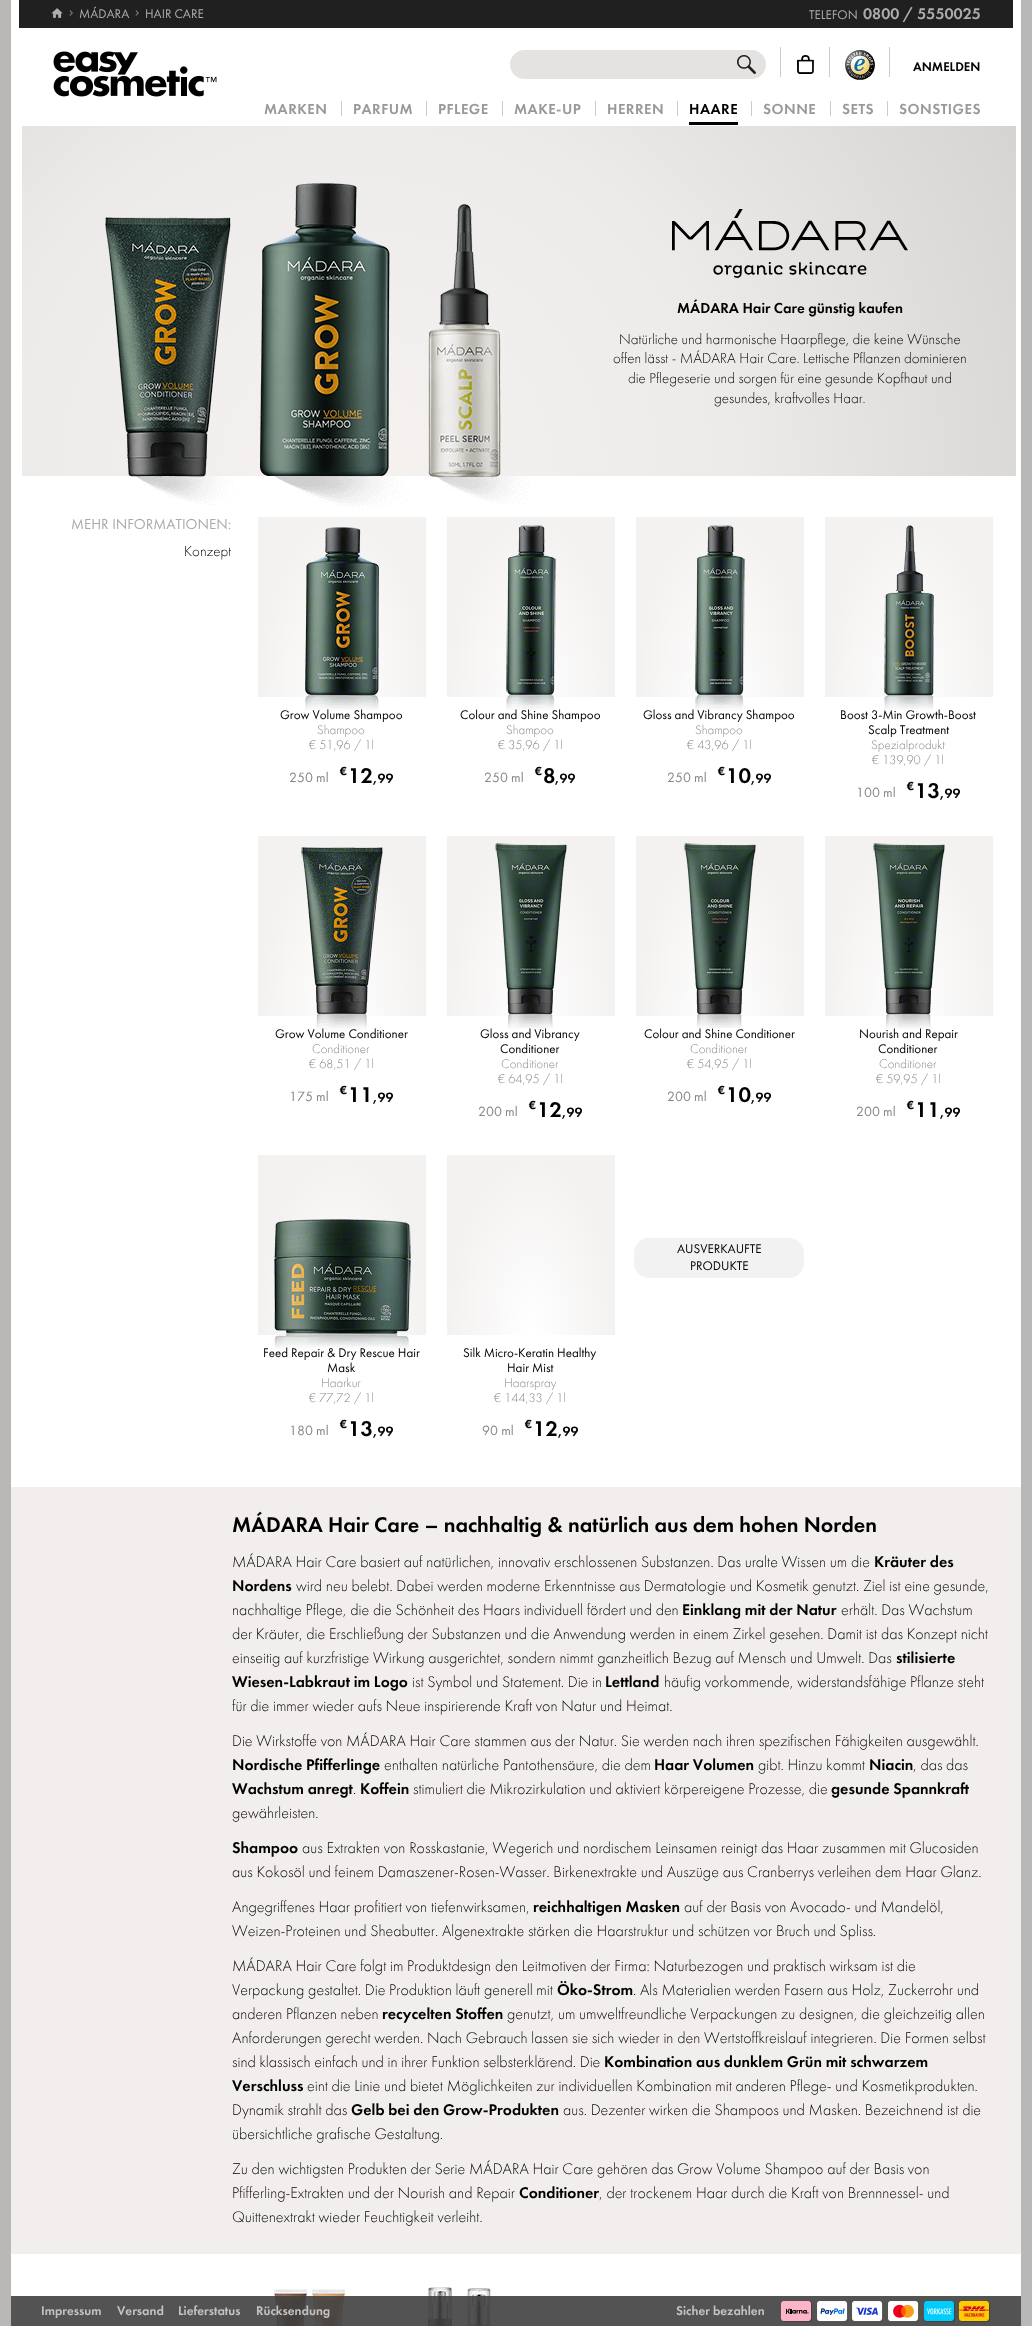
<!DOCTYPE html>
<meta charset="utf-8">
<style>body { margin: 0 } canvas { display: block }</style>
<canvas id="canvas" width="1032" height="2326"></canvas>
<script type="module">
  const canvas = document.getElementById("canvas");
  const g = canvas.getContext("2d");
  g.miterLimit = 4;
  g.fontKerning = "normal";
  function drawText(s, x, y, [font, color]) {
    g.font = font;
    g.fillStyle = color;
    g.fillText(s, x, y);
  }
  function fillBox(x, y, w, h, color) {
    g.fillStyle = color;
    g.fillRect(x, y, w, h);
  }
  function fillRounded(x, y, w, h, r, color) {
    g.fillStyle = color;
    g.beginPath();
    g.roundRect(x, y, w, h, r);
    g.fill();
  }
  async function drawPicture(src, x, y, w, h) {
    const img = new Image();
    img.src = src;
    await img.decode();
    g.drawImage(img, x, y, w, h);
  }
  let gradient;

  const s1 = ["13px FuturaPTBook", "#B0ACAE"];
  const s2 = ["16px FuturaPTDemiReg", "#B0ACAE"];
  const s3 = ["13px FuturaPTDemiReg", "#000000"];
  const s4 = ["15px FuturaPTDemiReg", "#9B9899"];
  const s5 = ["15px FuturaPTDemiReg", "#000000"];
  const s6 = ["300 15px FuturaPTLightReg", "#000000"];
  const s7 = ["15px FuturaPTBook", "#AAAAAA"];
  const s8 = ["13px FuturaPTBook", "#000000"];
  const s9 = ["300 13px FuturaPTLightReg", "#868686"];
  const s10 = ["14px FuturaPTBook", "#868686"];
  const s11 = ["12px FuturaPTDemiReg", "#000000"];
  const s12 = ["22px FuturaPTDemiReg", "#000000"];
  const s13 = ["14px FuturaPTDemiReg", "#000000"];
  const s14 = ["300 16px FuturaPTLightReg", "#000000"];
  const s15 = ["16px FuturaPTDemiReg", "#000000"];
  const s16 = ["13px FuturaPTDemiReg", "#C3C3C3"];

  fillBox(0, 0, 1032, 2326, "#FFFFFF");
  fillBox(0, 0, 11, 2326, "#B9B8B6");
  fillBox(1021, 0, 11, 2326, "#B9B8B6");
  fillBox(19, 0, 994, 28, "#202020");
  await drawPicture("pic1.png", 51, 8, 12, 10);
  await drawPicture("pic2.png", 69, 10, 4, 6);
  drawText("MÁDARA", 79, 18, s1);
  await drawPicture("pic2.png", 135, 10, 4, 6);
  drawText("HAIR CARE", 145, 18, s1);
  drawText("TELEFON", 809, 19, s1);
  drawText("0800 / 5550025", 863, 19, s2);
  await drawPicture("pic3.png", 53, 51, 164, 46);
  fillRounded(510, 50, 256, 29, 14.5, "#E5E3E1");
  await drawPicture("pic4.png", 737, 55, 19, 19);
  fillBox(780, 47, 1, 30, "#CCCCCC");
  await drawPicture("pic5.png", 797, 55, 17, 19);
  fillBox(829, 47, 1, 30, "#CCCCCC");
  await drawPicture("pic6.png", 845, 50, 30, 30);
  fillBox(889, 47, 1, 30, "#CCCCCC");
  drawText("ANMELDEN", 913, 71, s3);
  g.letterSpacing = "0.5px";
  drawText("MARKEN", 264, 114, s4);
  fillBox(341, 101, 1, 15, "#CCCCCC");
  drawText("PARFUM", 353, 114, s4);
  fillBox(426, 101, 1, 15, "#CCCCCC");
  drawText("PFLEGE", 438, 114, s4);
  fillBox(502, 101, 1, 15, "#CCCCCC");
  drawText("MAKE‑UP", 514, 114, s4);
  fillBox(595, 101, 1, 15, "#CCCCCC");
  drawText("HERREN", 607, 114, s4);
  fillBox(677, 101, 1, 15, "#CCCCCC");
  drawText("HAARE", 689, 114, s5);
  fillBox(689, 122, 49, 3, "#000000");
  fillBox(751, 101, 1, 15, "#CCCCCC");
  drawText("SONNE", 763, 114, s4);
  fillBox(830, 101, 1, 15, "#CCCCCC");
  drawText("SETS", 842, 114, s4);
  fillBox(887, 101, 1, 15, "#CCCCCC");
  drawText("SONSTIGES", 899, 114, s4);
  gradient = g.createRadialGradient(360, 476, 0, 360, 476, 744);
  gradient.addColorStop(0, "#F5F2F0");
  gradient.addColorStop(0.5, "#EDEBEA");
  gradient.addColorStop(1, "#D5D4D2");
  g.fillStyle = gradient;
  g.fillRect(22, 126, 994, 350);
  await drawPicture("pic7.png", 105, 183, 430, 327);
  await drawPicture("pic8.png", 672, 209, 236, 69);
  g.letterSpacing = "0px";
  drawText("MÁDARA Hair Care günstig kaufen", 677, 313, s5);
  drawText("Natürliche und harmonische Haarpflege, die keine Wünsche", 619, 344, s6);
  drawText("offen lässt - MÁDARA Hair Care. Lettische Pflanzen dominieren", 613, 363, s6);
  drawText("die Pflegeserie und sorgen für eine gesunde Kopfhaut und", 628, 383, s6);
  drawText("gesundes, kraftvolles Haar.", 714, 403, s6);
  drawText("MEHR INFORMATIONEN:", 71, 529, s7);
  drawText("Konzept", 184, 556, s6);
  gradient = g.createRadialGradient(342, 325.27, 0, 342, 325.27, 119);
  gradient.addColorStop(0, "#FFFFFF");
  gradient.addColorStop(0.69, "#F4F2F1");
  g.fillStyle = gradient;
  g.beginPath();
  g.rect(258, 517, 168, 180);
  g.save();
  g.clip();
  g.scale(1, 255 / 119);
  g.fillRect(0, 0, 1032, 1086);
  g.restore();
  drawText("Grow Volume Shampoo", 280, 719, s8);
  await drawPicture("pic9.png", 305, 527, 74, 184);
  drawText("Shampoo", 317, 734, s9);
  drawText("€ 51,96 / 1l", 309, 749, s9);
  drawText("250 ml", 289, 782, s10);
  drawText("€", 340, 775, s11);
  drawText("12", 348, 783, s12);
  drawText(",99", 373, 783, s13);
  gradient = g.createRadialGradient(531, 325.27, 0, 531, 325.27, 119);
  gradient.addColorStop(0, "#FFFFFF");
  gradient.addColorStop(0.69, "#F4F2F1");
  g.fillStyle = gradient;
  g.beginPath();
  g.rect(447, 517, 168, 180);
  g.save();
  g.clip();
  g.scale(1, 255 / 119);
  g.fillRect(0, 0, 1032, 1086);
  g.restore();
  drawText("Colour and Shine Shampoo", 460, 719, s8);
  await drawPicture("pic10.png", 506, 525, 50, 186);
  drawText("Shampoo", 506, 734, s9);
  drawText("€ 35,96 / 1l", 498, 749, s9);
  drawText("250 ml", 484, 782, s10);
  drawText("€", 535, 775, s11);
  drawText("8", 543, 783, s12);
  drawText(",99", 555, 783, s13);
  gradient = g.createRadialGradient(720, 325.27, 0, 720, 325.27, 119);
  gradient.addColorStop(0, "#FFFFFF");
  gradient.addColorStop(0.69, "#F4F2F1");
  g.fillStyle = gradient;
  g.beginPath();
  g.rect(636, 517, 168, 180);
  g.save();
  g.clip();
  g.scale(1, 255 / 119);
  g.fillRect(0, 0, 1032, 1086);
  g.restore();
  drawText("Gloss and Vibrancy Shampoo", 643, 719, s8);
  await drawPicture("pic11.png", 695, 525, 50, 186);
  drawText("Shampoo", 695, 734, s9);
  drawText("€ 43,96 / 1l", 687, 749, s9);
  drawText("250 ml", 667, 782, s10);
  drawText("€", 718, 775, s11);
  drawText("10", 726, 783, s12);
  drawText(",99", 751, 783, s13);
  gradient = g.createRadialGradient(909, 325.27, 0, 909, 325.27, 119);
  gradient.addColorStop(0, "#FFFFFF");
  gradient.addColorStop(0.69, "#F4F2F1");
  g.fillStyle = gradient;
  g.beginPath();
  g.rect(825, 517, 168, 180);
  g.save();
  g.clip();
  g.scale(1, 255 / 119);
  g.fillRect(0, 0, 1032, 1086);
  g.restore();
  drawText("Boost 3-Min Growth-Boost", 840, 719, s8);
  await drawPicture("pic12.png", 884, 525, 50, 185);
  drawText("Scalp Treatment", 868, 734, s8);
  drawText("Spezialprodukt", 871, 749, s9);
  drawText("€ 139,90 / 1l", 872, 764, s9);
  drawText("100 ml", 856, 797, s10);
  drawText("€", 907, 790, s11);
  drawText("13", 915, 798, s12);
  drawText(",99", 940, 798, s13);
  gradient = g.createRadialGradient(342, 474.13, 0, 342, 474.13, 119);
  gradient.addColorStop(0, "#FFFFFF");
  gradient.addColorStop(0.69, "#F4F2F1");
  g.fillStyle = gradient;
  g.beginPath();
  g.rect(258, 836, 168, 180);
  g.save();
  g.clip();
  g.scale(1, 255 / 119);
  g.fillRect(0, 0, 1032, 1086);
  g.restore();
  drawText("Grow Volume Conditioner", 275, 1038, s8);
  await drawPicture("pic13.png", 301, 847, 82, 185);
  drawText("Conditioner", 312, 1053, s9);
  drawText("€ 68,51 / 1l", 309, 1068, s9);
  drawText("175 ml", 289, 1101, s10);
  drawText("€", 340, 1094, s11);
  drawText("11", 348, 1102, s12);
  drawText(",99", 373, 1102, s13);
  gradient = g.createRadialGradient(531, 474.13, 0, 531, 474.13, 119);
  gradient.addColorStop(0, "#FFFFFF");
  gradient.addColorStop(0.69, "#F4F2F1");
  g.fillStyle = gradient;
  g.beginPath();
  g.rect(447, 836, 168, 180);
  g.save();
  g.clip();
  g.scale(1, 255 / 119);
  g.fillRect(0, 0, 1032, 1086);
  g.restore();
  drawText("Gloss and Vibrancy", 480, 1038, s8);
  await drawPicture("pic14.png", 495, 843, 72, 186);
  drawText("Conditioner", 500, 1053, s8);
  drawText("Conditioner", 501, 1068, s9);
  drawText("€ 64,95 / 1l", 498, 1083, s9);
  drawText("200 ml", 478, 1116, s10);
  drawText("€", 529, 1109, s11);
  drawText("12", 537, 1117, s12);
  drawText(",99", 562, 1117, s13);
  gradient = g.createRadialGradient(720, 474.13, 0, 720, 474.13, 119);
  gradient.addColorStop(0, "#FFFFFF");
  gradient.addColorStop(0.69, "#F4F2F1");
  g.fillStyle = gradient;
  g.beginPath();
  g.rect(636, 836, 168, 180);
  g.save();
  g.clip();
  g.scale(1, 255 / 119);
  g.fillRect(0, 0, 1032, 1086);
  g.restore();
  await drawPicture("pic15.png", 684, 843, 72, 185);
  drawText("Colour and Shine Conditioner", 644, 1038, s8);
  drawText("Conditioner", 690, 1053, s9);
  drawText("€ 54,95 / 1l", 687, 1068, s9);
  drawText("200 ml", 667, 1101, s10);
  drawText("€", 718, 1094, s11);
  drawText("10", 726, 1102, s12);
  drawText(",99", 751, 1102, s13);
  gradient = g.createRadialGradient(909, 474.13, 0, 909, 474.13, 119);
  gradient.addColorStop(0, "#FFFFFF");
  gradient.addColorStop(0.69, "#F4F2F1");
  g.fillStyle = gradient;
  g.beginPath();
  g.rect(825, 836, 168, 180);
  g.save();
  g.clip();
  g.scale(1, 255 / 119);
  g.fillRect(0, 0, 1032, 1086);
  g.restore();
  drawText("Nourish and Repair", 859, 1038, s8);
  await drawPicture("pic16.png", 873, 843, 72, 187);
  drawText("Conditioner", 878, 1053, s8);
  drawText("Conditioner", 879, 1068, s9);
  drawText("€ 59,95 / 1l", 876, 1083, s9);
  drawText("200 ml", 856, 1116, s10);
  drawText("€", 907, 1109, s11);
  drawText("11", 915, 1117, s12);
  drawText(",99", 940, 1117, s13);
  fillRounded(634, 1238, 170, 40, 15, "#F2F2F2");
  drawText("AUSVERKAUFTE", 677, 1253, s8);
  drawText("PRODUKTE", 690, 1270, s8);
  gradient = g.createRadialGradient(342, 623, 0, 342, 623, 119);
  gradient.addColorStop(0, "#FFFFFF");
  gradient.addColorStop(0.69, "#F4F2F1");
  g.fillStyle = gradient;
  g.beginPath();
  g.rect(258, 1155, 168, 180);
  g.save();
  g.clip();
  g.scale(1, 255 / 119);
  g.fillRect(0, 0, 1032, 1086);
  g.restore();
  drawText("Feed Repair & Dry Rescue Hair", 263, 1357, s8);
  await drawPicture("pic17.png", 274, 1219, 137, 130);
  drawText("Mask", 327, 1372, s8);
  drawText("Haarkur", 321, 1387, s9);
  drawText("€ 77,72 / 1l", 309, 1402, s9);
  drawText("180 ml", 289, 1435, s10);
  drawText("€", 340, 1428, s11);
  drawText("13", 348, 1436, s12);
  drawText(",99", 373, 1436, s13);
  gradient = g.createRadialGradient(531, 623, 0, 531, 623, 119);
  gradient.addColorStop(0, "#FFFFFF");
  gradient.addColorStop(0.69, "#F4F2F1");
  g.fillStyle = gradient;
  g.beginPath();
  g.rect(447, 1155, 168, 180);
  g.save();
  g.clip();
  g.scale(1, 255 / 119);
  g.fillRect(0, 0, 1032, 1086);
  g.restore();
  drawText("Silk Micro-Keratin Healthy", 463, 1357, s8);
  drawText("Hair Mist", 507, 1372, s8);
  drawText("Haarspray", 504, 1387, s9);
  drawText("€ 144,33 / 1l", 494, 1402, s9);
  drawText("90 ml", 482, 1435, s10);
  drawText("€", 525, 1428, s11);
  drawText("12", 533, 1436, s12);
  drawText(",99", 558, 1436, s13);
  fillBox(11, 1487, 1010, 767, "#F2EEED");
  drawText("MÁDARA Hair Care – nachhaltig & natürlich aus dem hohen Norden", 232, 1532, s12);
  drawText("MÁDARA Hair Care basiert auf natürlichen, innovativ erschlossenen Substanzen. Das uralte Wissen um die", 232, 1567, s14);
  drawText("Kräuter des", 874, 1567, s15);
  drawText("Nordens", 232, 1591, s15);
  drawText("wird neu belebt. Dabei werden moderne Erkenntnisse aus Dermatologie und Kosmetik genutzt. Ziel ist eine gesunde,", 296, 1591, s14);
  drawText("nachhaltige Pflege, die die Schönheit des Haars individuell fördert und den", 232, 1615, s14);
  drawText("Einklang mit der Natur", 682, 1615, s15);
  drawText("erhält. Das Wachstum", 841, 1615, s14);
  drawText("der Kräuter, die Erschließung der Substanzen und die Anwendung werden in einem Zirkel gesehen. Damit ist das Konzept nicht", 232, 1639, s14);
  drawText("einseitig auf kurzfristige Wirkung ausgerichtet, sondern nimmt ganzheitlich Bezug auf Mensch und Umwelt. Das", 232, 1663, s14);
  drawText("stilisierte", 896, 1663, s15);
  drawText("Wiesen-Labkraut im Logo", 232, 1687, s15);
  drawText("ist Symbol und Statement. Die in", 412, 1687, s14);
  drawText("Lettland", 605, 1687, s15);
  drawText("häufig vorkommende, widerstandsfähige Pflanze steht", 664, 1687, s14);
  drawText("für die immer wieder aufs Neue inspirierende Kraft von Natur und Heimat.", 232, 1711, s14);
  drawText("Die Wirkstoffe von MÁDARA Hair Care stammen aus der Natur. Sie werden nach ihren spezifischen Fähigkeiten ausgewählt.", 232, 1746, s14);
  drawText("Nordische Pfifferlinge", 232, 1770, s15);
  drawText("enthalten natürliche Pantothensäure, die dem", 384, 1770, s14);
  drawText("Haar Volumen", 654, 1770, s15);
  drawText("gibt. Hinzu kommt", 758, 1770, s14);
  drawText("Niacin", 869, 1770, s15);
  drawText(", das das", 913, 1770, s14);
  drawText("Wachstum anregt", 232, 1794, s15);
  drawText(".", 353, 1794, s14);
  drawText("Koffein", 360, 1794, s15);
  drawText("stimuliert die Mikrozirkulation und aktiviert körpereigene Prozesse, die", 413, 1794, s14);
  drawText("gesunde Spannkraft", 831, 1794, s15);
  drawText("gewährleisten.", 232, 1818, s14);
  drawText("Shampoo", 232, 1853, s15);
  drawText("aus Extrakten von Rosskastanie, Wegerich und nordischem Leinsamen reinigt das Haar zusammen mit Glucosiden", 302, 1853, s14);
  drawText("aus Kokosöl und feinem Damaszener-Rosen-Wasser. Birkenextrakte und Auszüge aus Cranberrys verleihen dem Haar Glanz.", 232, 1877, s14);
  drawText("Angegriffenes Haar profitiert von tiefenwirksamen,", 232, 1912, s14);
  drawText("reichhaltigen Masken", 533, 1912, s15);
  drawText("auf der Basis von Avocado- und Mandelöl,", 684, 1912, s14);
  drawText("Weizen-Proteinen und Sheabutter. Algenextrakte stärken die Haarstruktur und schützen vor Bruch und Spliss.", 232, 1936, s14);
  drawText("MÁDARA Hair Care folgt im Produktdesign den Leitmotiven der Firma: Naturbezogen und praktisch wirksam ist die", 232, 1971, s14);
  drawText("Verpackung gestaltet. Die Produktion läuft generell mit", 232, 1995, s14);
  drawText("Öko-Strom", 557, 1995, s15);
  drawText(". Als Materialien werden Fasern aus Holz, Zuckerrohr und", 633, 1995, s14);
  drawText("anderen Pflanzen neben", 232, 2019, s14);
  drawText("recycelten Stoffen", 382, 2019, s15);
  drawText("genutzt, um umweltfreundliche Verpackungen zu designen, die gleichzeitig allen", 507, 2019, s14);
  drawText("Anforderungen gerecht werden. Nach Gebrauch lassen sie sich wieder in den Wertstoffkreislauf integrieren. Die Formen selbst", 232, 2043, s14);
  drawText("sind klassisch einfach und in ihrer Funktion selbsterklärend. Die", 232, 2067, s14);
  drawText("Kombination aus dunklem Grün mit schwarzem", 604, 2067, s15);
  drawText("Verschluss", 232, 2091, s15);
  drawText("eint die Linie und bietet Möglichkeiten zur individuellen Kombination mit anderen Pflege- und Kosmetikprodukten.", 307, 2091, s14);
  drawText("Dynamik strahlt das", 232, 2115, s14);
  drawText("Gelb bei den Grow-Produkten", 351, 2115, s15);
  drawText("aus. Dezenter wirken die Shampoos und Masken. Bezeichnend ist die", 563, 2115, s14);
  drawText("übersichtliche grafische Gestaltung.", 232, 2139, s14);
  drawText("Zu den wichtigsten Produkten der Serie MÁDARA Hair Care gehören das Grow Volume Shampoo auf der Basis von", 232, 2174, s14);
  drawText("Pfifferling-Extrakten und der Nourish and Repair", 232, 2198, s14);
  drawText("Conditioner", 519, 2198, s15);
  drawText(", der trockenem Haar durch die Kraft von Brennnessel- und", 599, 2198, s14);
  drawText("Quittenextrakt wieder Feuchtigkeit verleiht.", 232, 2222, s14);
  await drawPicture("pic18.png", 274, 2289, 71, 37);
  await drawPicture("pic19.png", 428, 2287, 63, 39);
  fillBox(11, 2296, 1010, 30, "rgba(64, 64, 64, 0.9)");
  drawText("Impressum", 41, 2315, s16);
  drawText("Versand", 117, 2315, s16);
  drawText("Lieferstatus", 178, 2315, s16);
  drawText("Rücksendung", 256, 2315, s16);
  drawText("Sicher bezahlen", 676, 2315, s16);
  await drawPicture("pic20.png", 781, 2301, 31, 21);
  await drawPicture("pic21.png", 817, 2301, 31, 21);
  await drawPicture("pic22.png", 852, 2301, 31, 21);
  await drawPicture("pic23.png", 888, 2301, 31, 21);
  await drawPicture("pic24.png", 924, 2301, 31, 21);
  await drawPicture("pic25.png", 959, 2301, 31, 21);
</script>
